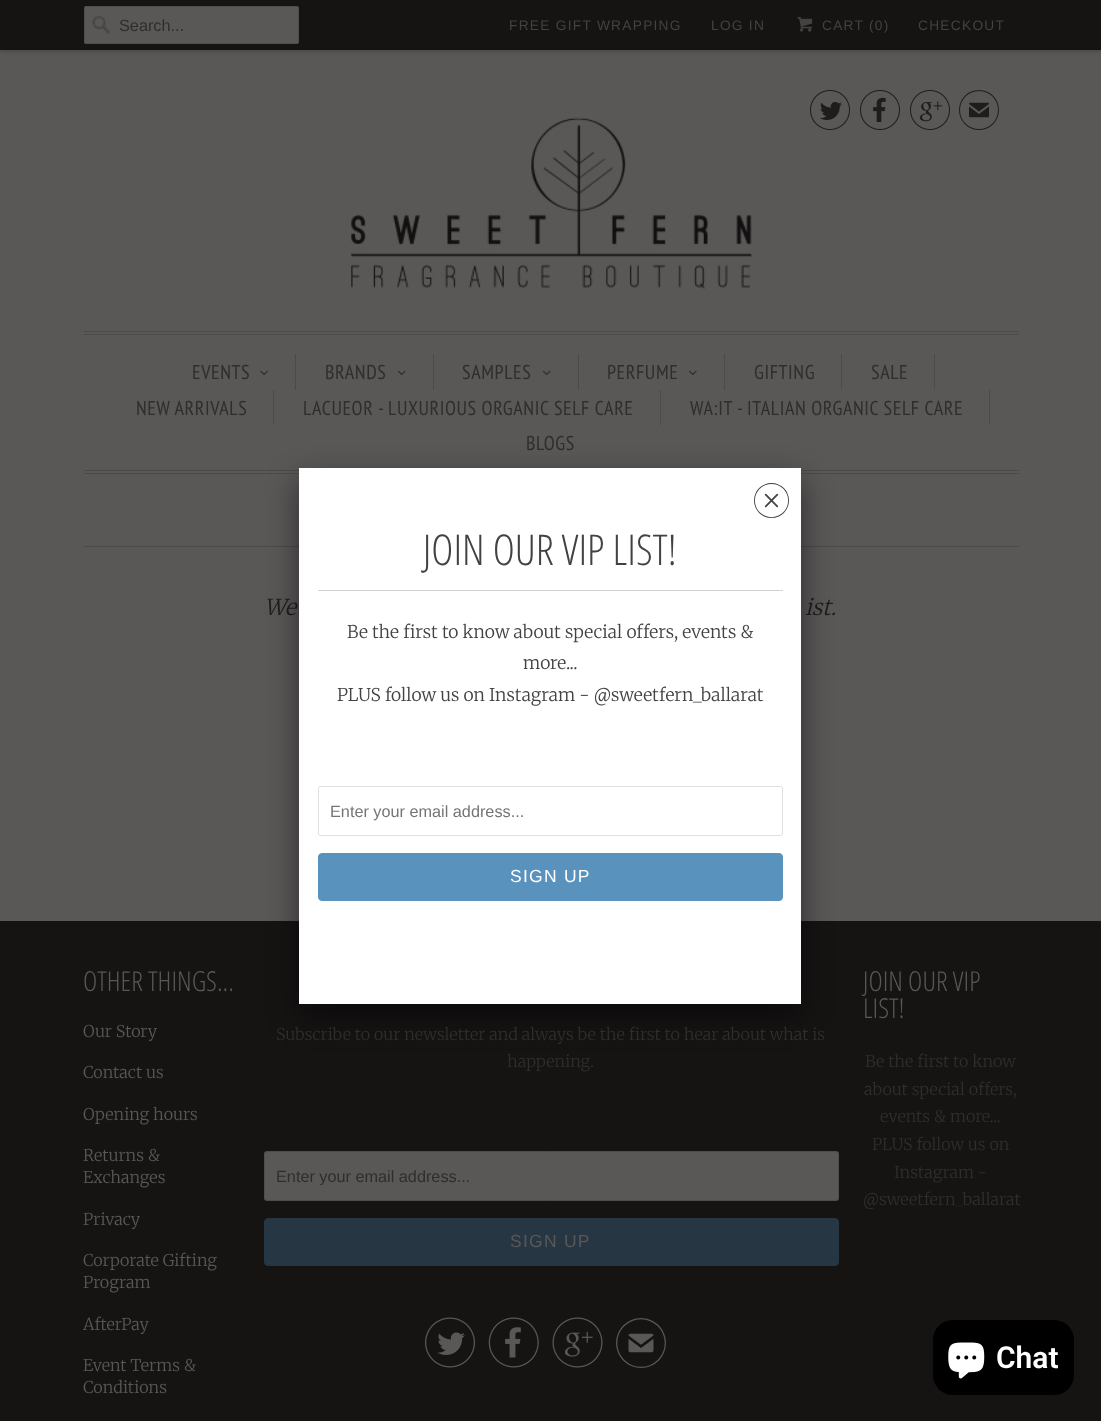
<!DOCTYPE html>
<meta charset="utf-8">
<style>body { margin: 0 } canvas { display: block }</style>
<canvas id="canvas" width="1101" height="1421"></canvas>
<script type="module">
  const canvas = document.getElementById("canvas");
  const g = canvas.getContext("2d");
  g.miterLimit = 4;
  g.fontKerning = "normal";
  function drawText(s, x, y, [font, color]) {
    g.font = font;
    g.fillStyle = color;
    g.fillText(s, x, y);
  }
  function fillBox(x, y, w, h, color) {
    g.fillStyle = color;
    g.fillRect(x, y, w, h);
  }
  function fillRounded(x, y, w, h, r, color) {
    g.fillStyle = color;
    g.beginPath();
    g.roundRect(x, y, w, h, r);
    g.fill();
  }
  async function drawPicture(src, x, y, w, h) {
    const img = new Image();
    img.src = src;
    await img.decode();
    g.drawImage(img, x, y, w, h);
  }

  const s1 = ["16.25px Liberation Sans", "#302D2D"];
  const s2 = ["13.75px Liberation Sans", "#434141"];
  const s3 = ["40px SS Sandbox", "#1F1C1C"];
  const s4 = ["20px PT Sans Narrow", "#302D2D"];
  const s5 = ["italic 300 22px Merriweather", "#1F1C1C"];
  const s6 = ["35px SS Sandbox", "#434141"];
  const s7 = ["300 42.5px Open Sans Condensed", "#434141"];
  const s8 = ["300 17.5px Merriweather", "#434141"];
  const s9 = ["16.25px Liberation Sans", "#757575"];
  const s10 = ["17.5px Liberation Sans", "#FFFFFF"];
  const s11 = ["300 27.5px Open Sans Condensed", "#5A5757"];
  const s12 = ["300 16.25px Merriweather", "#5A5757"];
  const s13 = ["300 16.25px Merriweather", "#302D2D"];
  const s14 = ["17.5px Liberation Sans", "#5A5757"];
  const s15 = ["50px SS Sandbox", "#5A5757"];
  const s16 = ["600 30px Roboto", "#FFFFFF"];

  fillBox(0, 0, 1101, 1421, "#5A5757");
  g.fillStyle = "rgba(11, 8, 8, 0.25)";
  g.filter = "blur(2px)";
  g.beginPath();
  g.rect(0, 1, 1101, 50);
  g.fill();
  g.filter = "none";
  fillBox(0, 0, 1101, 49, "#161313");
  fillBox(0, 49, 1101, 1, "#151212");
  fillRounded(84, 6, 215, 38, 2.5, "#5A5757");
  await drawPicture("pic1.png", 92, 16, 18, 18);
  g.beginPath();
  g.roundRect(84.5, 6.5, 214, 37, 2);
  g.strokeStyle = "#504D4D";
  g.stroke();
  drawText("Search...", 119, 31, s1);
  g.letterSpacing = "1.25px";
  drawText("FREE GIFT WRAPPING", 509, 30, s2);
  drawText("LOG IN", 711, 30, s2);
  await drawPicture("pic2.png", 797, 17, 16, 15);
  drawText("CART (0)", 822, 30, s2);
  drawText("CHECKOUT", 918, 30, s2);
  await drawPicture("pic3.png", 810, 90, 40, 40);
  await drawPicture("pic4.png", 860, 90, 40, 40);
  await drawPicture("pic5.png", 910, 90, 40, 40);
  g.letterSpacing = "0px";
  drawText("✉", 959, 130, s3);
  await drawPicture("pic6.png", 351, 117, 401, 172);
  fillBox(84, 331, 935, 1, "#4C4A4A");
  fillBox(84, 334, 935, 1, "#4C4A4A");
  fillBox(84, 470, 935, 1, "#4C4A4A");
  fillBox(84, 473, 935, 1, "#4C4A4A");
  fillBox(295, 354, 1, 36, "#4C4A4A");
  g.letterSpacing = "0.6px";
  drawText("EVENTS", 192, 379, s4);
  await drawPicture("pic7.png", 260, 370, 8, 5);
  fillBox(433, 354, 1, 36, "#4C4A4A");
  drawText("BRANDS", 325, 379, s4);
  await drawPicture("pic8.png", 397, 370, 9, 5);
  fillBox(578, 354, 1, 36, "#4C4A4A");
  drawText("SAMPLES", 462, 379, s4);
  await drawPicture("pic8.png", 542, 370, 9, 5);
  fillBox(724, 354, 1, 36, "#4C4A4A");
  drawText("PERFUME", 607, 379, s4);
  await drawPicture("pic9.png", 689, 370, 8, 5);
  fillBox(841, 354, 1, 35, "#4C4A4A");
  drawText("GIFTING", 754, 379, s4);
  fillBox(934, 354, 1, 35, "#4C4A4A");
  drawText("SALE", 871, 379, s4);
  fillBox(273, 390, 1, 35, "#4C4A4A");
  drawText("NEW ARRIVALS", 136, 415, s4);
  fillBox(660, 390, 1, 35, "#4C4A4A");
  drawText("LACUEOR - LUXURIOUS ORGANIC SELF CARE", 303, 415, s4);
  fillBox(989, 390, 1, 35, "#4C4A4A");
  drawText("WA:IT - ITALIAN ORGANIC SELF CARE", 690, 415, s4);
  drawText("BLOGS", 526, 450, s4);
  fillBox(84, 546, 935, 1, "#4C4A4A");
  g.letterSpacing = "0px";
  drawText("We'", 264, 615, s5);
  drawText("ist.", 805, 615, s5);
  fillBox(0, 921, 1101, 500, "#161313");
  g.fillStyle = "rgba(0, 0, 0, 0.5)";
  g.filter = "blur(15.5px)";
  g.beginPath();
  g.rect(299, 480, 502, 536);
  g.fill();
  g.filter = "none";
  fillBox(299, 468, 502, 536, "#FFFFFF");
  drawText("␡", 754, 518, s6);
  fillBox(318, 590, 465, 1, "#D3D3D3");
  drawText("JOIN OUR VIP LIST!", 423, 565, s7);
  drawText("Be the first to know about special offers, events &", 347, 638, s8);
  drawText("more...", 523, 669, s8);
  drawText("PLUS follow us on Instagram - @sweetfern_ballarat", 337, 701, s8);
  g.beginPath();
  g.roundRect(318.5, 786.5, 464, 49, 2);
  g.strokeStyle = "#DFDFDF";
  g.stroke();
  drawText("Enter your email address...", 330, 817, s9);
  g.fillStyle = "#5992BC";
  g.beginPath();
  g.roundRect(318.5, 853.5, 464, 47, 3.5);
  g.fill();
  g.strokeStyle = "#5992BC";
  g.stroke();
  g.letterSpacing = "1.25px";
  drawText("SIGN UP", 510, 882, s10);
  g.letterSpacing = "0px";
  drawText("OTHER THINGS...", 83, 991, s11);
  drawText("Our Story", 83, 1037, s12);
  drawText("Contact us", 83, 1078, s12);
  drawText("Opening hours", 83, 1120, s12);
  drawText("Returns &", 83, 1161, s12);
  drawText("Exchanges", 83, 1183, s12);
  drawText("Privacy", 83, 1225, s12);
  drawText("Corporate Gifting", 83, 1266, s12);
  drawText("Program", 83, 1288, s12);
  drawText("AfterPay", 83, 1330, s12);
  drawText("Event Terms &", 83, 1371, s12);
  drawText("Conditions", 83, 1393, s12);
  drawText("Subscribe to our newsletter and always be the first to hear about what is", 276, 1040, s13);
  drawText("happening.", 507, 1067, s13);
  g.fillStyle = "#5A5757";
  g.beginPath();
  g.roundRect(264.5, 1151.5, 574, 49, 2);
  g.fill();
  g.strokeStyle = "#504D4D";
  g.stroke();
  g.save();
  g.beginPath();
  g.rect(276, 1166, 550, 19);
  g.clip();
  drawText("Enter your email address...", 276, 1182, s1);
  g.restore();
  g.fillStyle = "#273643";
  g.beginPath();
  g.roundRect(264.5, 1218.5, 574, 47, 3.5);
  g.fill();
  g.strokeStyle = "#273643";
  g.stroke();
  g.letterSpacing = "1.25px";
  drawText("SIGN UP", 510, 1247, s14);
  await drawPicture("pic10.png", 425, 1317, 50, 51);
  await drawPicture("pic11.png", 488, 1317, 51, 51);
  await drawPicture("pic12.png", 552, 1317, 51, 51);
  g.letterSpacing = "0px";
  drawText("✉", 616, 1368, s15);
  drawText("JOIN OUR VIP", 863, 991, s11);
  drawText("LIST!", 863, 1018, s11);
  drawText("Be the first to know", 865, 1067, s13);
  drawText("about special offers,", 864, 1095, s13);
  drawText("events & more...", 880, 1122, s13);
  drawText("PLUS follow us on", 872, 1150, s13);
  drawText("Instagram -", 894, 1178, s13);
  drawText("@sweetfern_ballarat", 863, 1205, s13);
  fillRounded(933, 1320, 141, 75, 20, "#000000");
  await drawPicture("pic13.png", 948, 1342, 37, 37);
  drawText("Chat", 996, 1368, s16);
</script>
